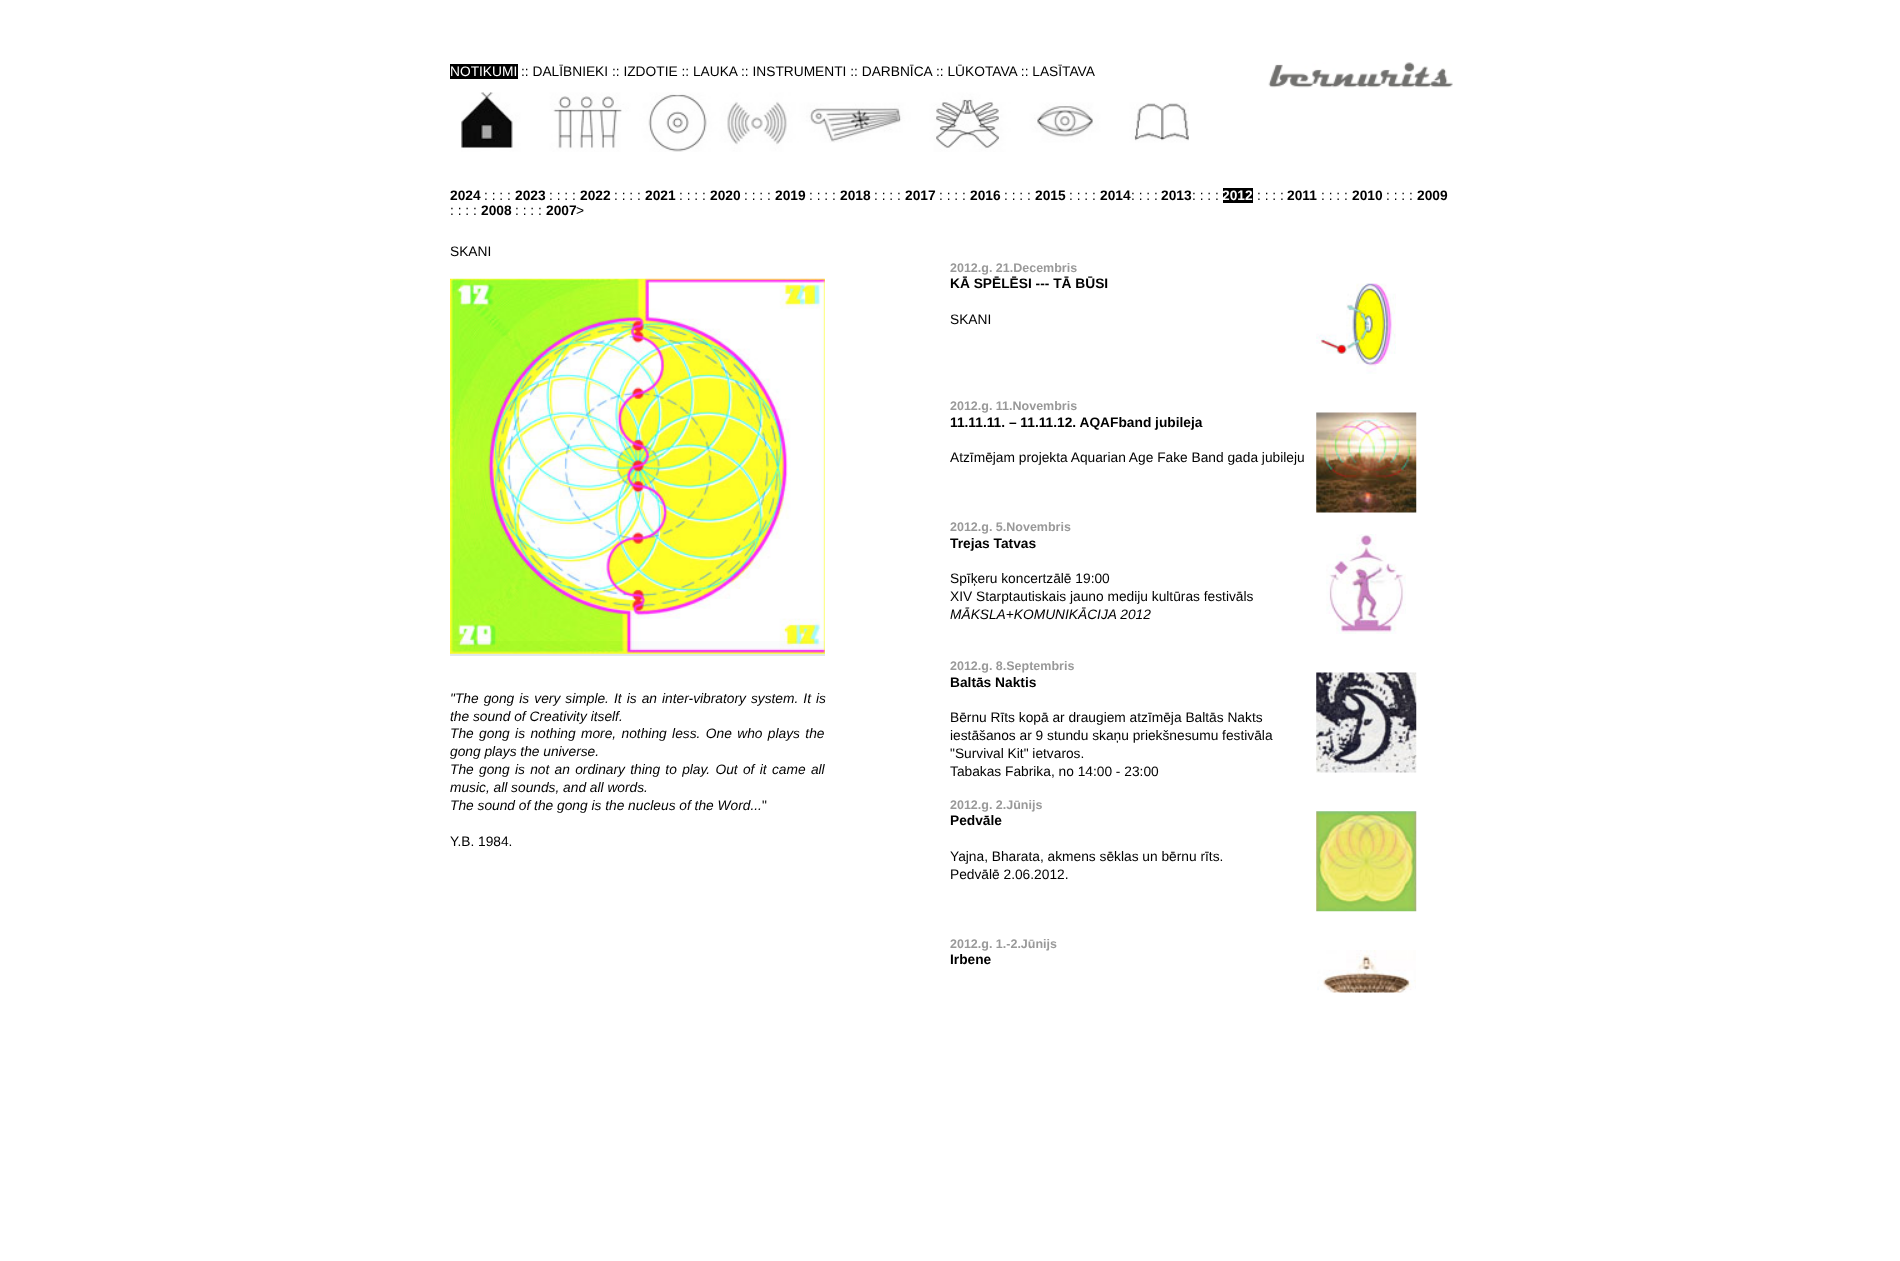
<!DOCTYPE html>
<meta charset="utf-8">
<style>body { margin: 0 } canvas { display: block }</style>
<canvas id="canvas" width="1900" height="1261"></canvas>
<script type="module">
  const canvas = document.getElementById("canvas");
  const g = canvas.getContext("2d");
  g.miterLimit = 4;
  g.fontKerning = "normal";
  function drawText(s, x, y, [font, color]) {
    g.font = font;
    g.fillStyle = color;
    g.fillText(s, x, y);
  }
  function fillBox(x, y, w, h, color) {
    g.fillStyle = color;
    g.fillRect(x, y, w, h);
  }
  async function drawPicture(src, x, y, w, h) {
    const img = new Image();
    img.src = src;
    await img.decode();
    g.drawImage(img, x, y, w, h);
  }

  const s1 = ["13.75px Liberation Sans", "#FFFFFF"];
  const s2 = ["13.75px Liberation Sans", "#000000"];
  const s3 = ["bold 13.75px Liberation Sans", "#000000"];
  const s4 = ["bold 13.75px Liberation Sans", "#FFFFFF"];
  const s5 = ["italic 13.75px Liberation Sans", "#000000"];
  const s6 = ["bold 12.5px Liberation Sans", "#999999"];

  fillBox(0, 0, 1900, 1261, "#FFFFFF");
  fillBox(450, 64, 68, 15, "#000000");
  drawText("NOTIKUMI", 450, 76, s1);
  drawText(":: DALĪBNIEKI :: IZDOTIE :: LAUKA", 521, 76, s2);
  drawText(":: INSTRUMENTI :: DARBNĪCA", 741, 76, s2);
  drawText(":: LŪKOTAVA :: LASĪTAVA", 936, 76, s2);
  await drawPicture("pic1.png", 1268, 62, 185, 26);
  await drawPicture("pic2.png", 461, 92, 728, 60);
  drawText("2024", 450, 200, s3);
  drawText(": : : :", 484, 200, s2);
  drawText("2023", 515, 200, s3);
  drawText(": : : :", 549, 200, s2);
  drawText("2022", 580, 200, s3);
  drawText(": : : :", 614, 200, s2);
  drawText("2021", 645, 200, s3);
  drawText(": : : :", 679, 200, s2);
  drawText("2020", 710, 200, s3);
  drawText(": : : :", 744, 200, s2);
  drawText("2019", 775, 200, s3);
  drawText(": : : :", 809, 200, s2);
  drawText("2018", 840, 200, s3);
  drawText(": : : :", 874, 200, s2);
  drawText("2017", 905, 200, s3);
  drawText(": : : :", 939, 200, s2);
  drawText("2016", 970, 200, s3);
  drawText(": : : :", 1004, 200, s2);
  drawText("2015", 1035, 200, s3);
  drawText(": : : :", 1069, 200, s2);
  drawText("2014", 1100, 200, s3);
  drawText(": : : :", 1131, 200, s2);
  drawText("2013", 1161, 200, s3);
  drawText(": : : :", 1192, 200, s2);
  fillBox(1223, 188, 30, 15, "#000000");
  drawText("2012", 1222, 200, s4);
  drawText(": : : :", 1257, 200, s2);
  drawText("2011", 1287, 200, s3);
  drawText(": : : :", 1321, 200, s2);
  drawText("2010", 1352, 200, s3);
  drawText(": : : :", 1386, 200, s2);
  drawText("2009", 1417, 200, s3);
  drawText(": : : :", 450, 215, s2);
  drawText("2008", 481, 215, s3);
  drawText(": : : :", 515, 215, s2);
  drawText("2007", 546, 215, s3);
  drawText(">", 576, 215, s2);
  drawText("SKANI", 450, 256, s2);
  fillBox(450, 641, 375, 15, "#E0E9E9");
  await drawPicture("pic3.png", 450, 278, 375, 376);
  g.wordSpacing = "1.25px";
  drawText("\"The gong is very simple. It is an inter-vibratory system. It is", 450, 703, s5);
  g.wordSpacing = "0px";
  drawText("the sound of Creativity itself.", 450, 721, s5);
  g.wordSpacing = "1.6px";
  drawText("The gong is nothing more, nothing less. One who plays the", 450, 738, s5);
  g.wordSpacing = "0px";
  drawText("gong plays the universe.", 450, 756, s5);
  g.wordSpacing = "1.5px";
  drawText("The gong is not an ordinary thing to play. Out of it came all", 450, 774, s5);
  g.wordSpacing = "0px";
  drawText("music, all sounds, and all words.", 450, 792, s5);
  drawText("The sound of the gong is the nucleus of the Word...", 450, 810, s5);
  drawText("\"", 762, 810, s2);
  drawText("Y.B. 1984.", 450, 846, s2);
  drawText("2012.g. 21.Decembris", 950, 272, s6);
  drawText("KĀ SPĒLĒSI --- TĀ BŪSI", 950, 288, s3);
  await drawPicture("pic4.png", 1316, 283, 80, 91);
  drawText("SKANI", 950, 324, s2);
  drawText("2012.g. 11.Novembris", 950, 410, s6);
  drawText("11.11.11. – 11.11.12. AQAFband jubileja", 950, 427, s3);
  await drawPicture("pic5.png", 1316, 412, 101, 101);
  drawText("Atzīmējam projekta Aquarian Age Fake Band gada jubileju", 950, 462, s2);
  drawText("2012.g. 5.Novembris", 950, 531, s6);
  drawText("Trejas Tatvas", 950, 548, s3);
  await drawPicture("pic6.png", 1326, 534, 80, 100);
  drawText("Spīķeru koncertzālē 19:00", 950, 583, s2);
  drawText("XIV Starptautiskais jauno mediju kultūras festivāls", 950, 601, s2);
  drawText("MĀKSLA+KOMUNIKĀCIJA 2012", 950, 619, s5);
  drawText("2012.g. 8.Septembris", 950, 670, s6);
  drawText("Baltās Naktis", 950, 687, s3);
  await drawPicture("pic7.png", 1316, 672, 101, 101);
  drawText("Bērnu Rīts kopā ar draugiem atzīmēja Baltās Nakts", 950, 722, s2);
  drawText("iestāšanos ar 9 stundu skaņu priekšnesumu festivāla", 950, 740, s2);
  drawText("\"Survival Kit\" ietvaros.", 950, 758, s2);
  drawText("Tabakas Fabrika, no 14:00 - 23:00", 950, 776, s2);
  drawText("2012.g. 2.Jūnijs", 950, 809, s6);
  drawText("Pedvāle", 950, 825, s3);
  await drawPicture("pic8.png", 1316, 811, 101, 101);
  drawText("Yajna, Bharata, akmens sēklas un bērnu rīts.", 950, 861, s2);
  drawText("Pedvālē 2.06.2012.", 950, 879, s2);
  drawText("2012.g. 1.-2.Jūnijs", 950, 948, s6);
  drawText("Irbene", 950, 964, s3);
  await drawPicture("pic9.png", 1317, 950, 99, 43);
</script>
